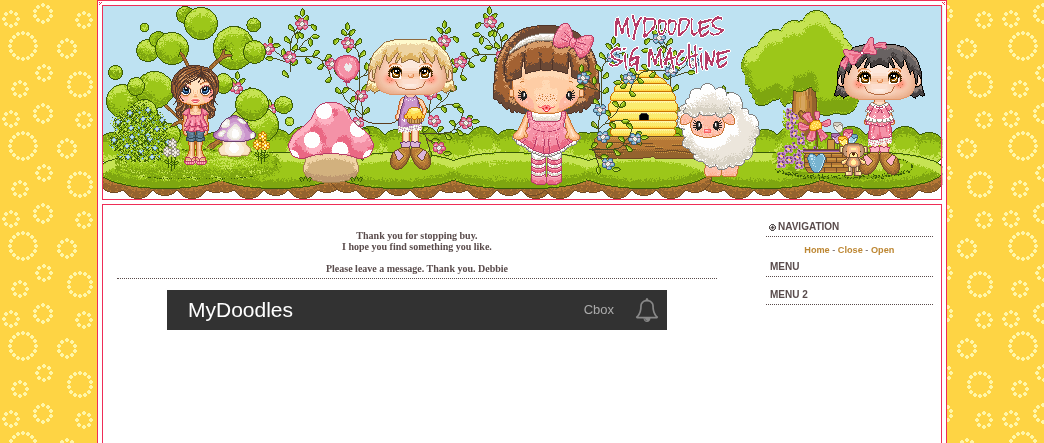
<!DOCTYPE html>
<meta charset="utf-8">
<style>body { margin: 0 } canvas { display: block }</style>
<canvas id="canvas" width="1044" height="443"></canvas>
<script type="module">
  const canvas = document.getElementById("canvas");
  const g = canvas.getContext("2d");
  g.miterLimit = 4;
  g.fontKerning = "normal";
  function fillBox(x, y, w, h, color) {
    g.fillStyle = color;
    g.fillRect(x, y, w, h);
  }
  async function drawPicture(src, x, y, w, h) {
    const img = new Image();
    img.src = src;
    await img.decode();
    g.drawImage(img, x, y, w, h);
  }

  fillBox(0, 0, 1044, 443, "#FFFFFF");
  await drawPicture("pic1.png", 0, 0, 1044, 443);
  await drawPicture("pic2.png", 97, 0, 850, 210);
  await drawPicture("pic3.png", 97, 210, 850, 233);
  await drawPicture("pic4.png", 117, 232, 600, 98);
  await drawPicture("pic5.png", 766, 222, 167, 83);
</script>
